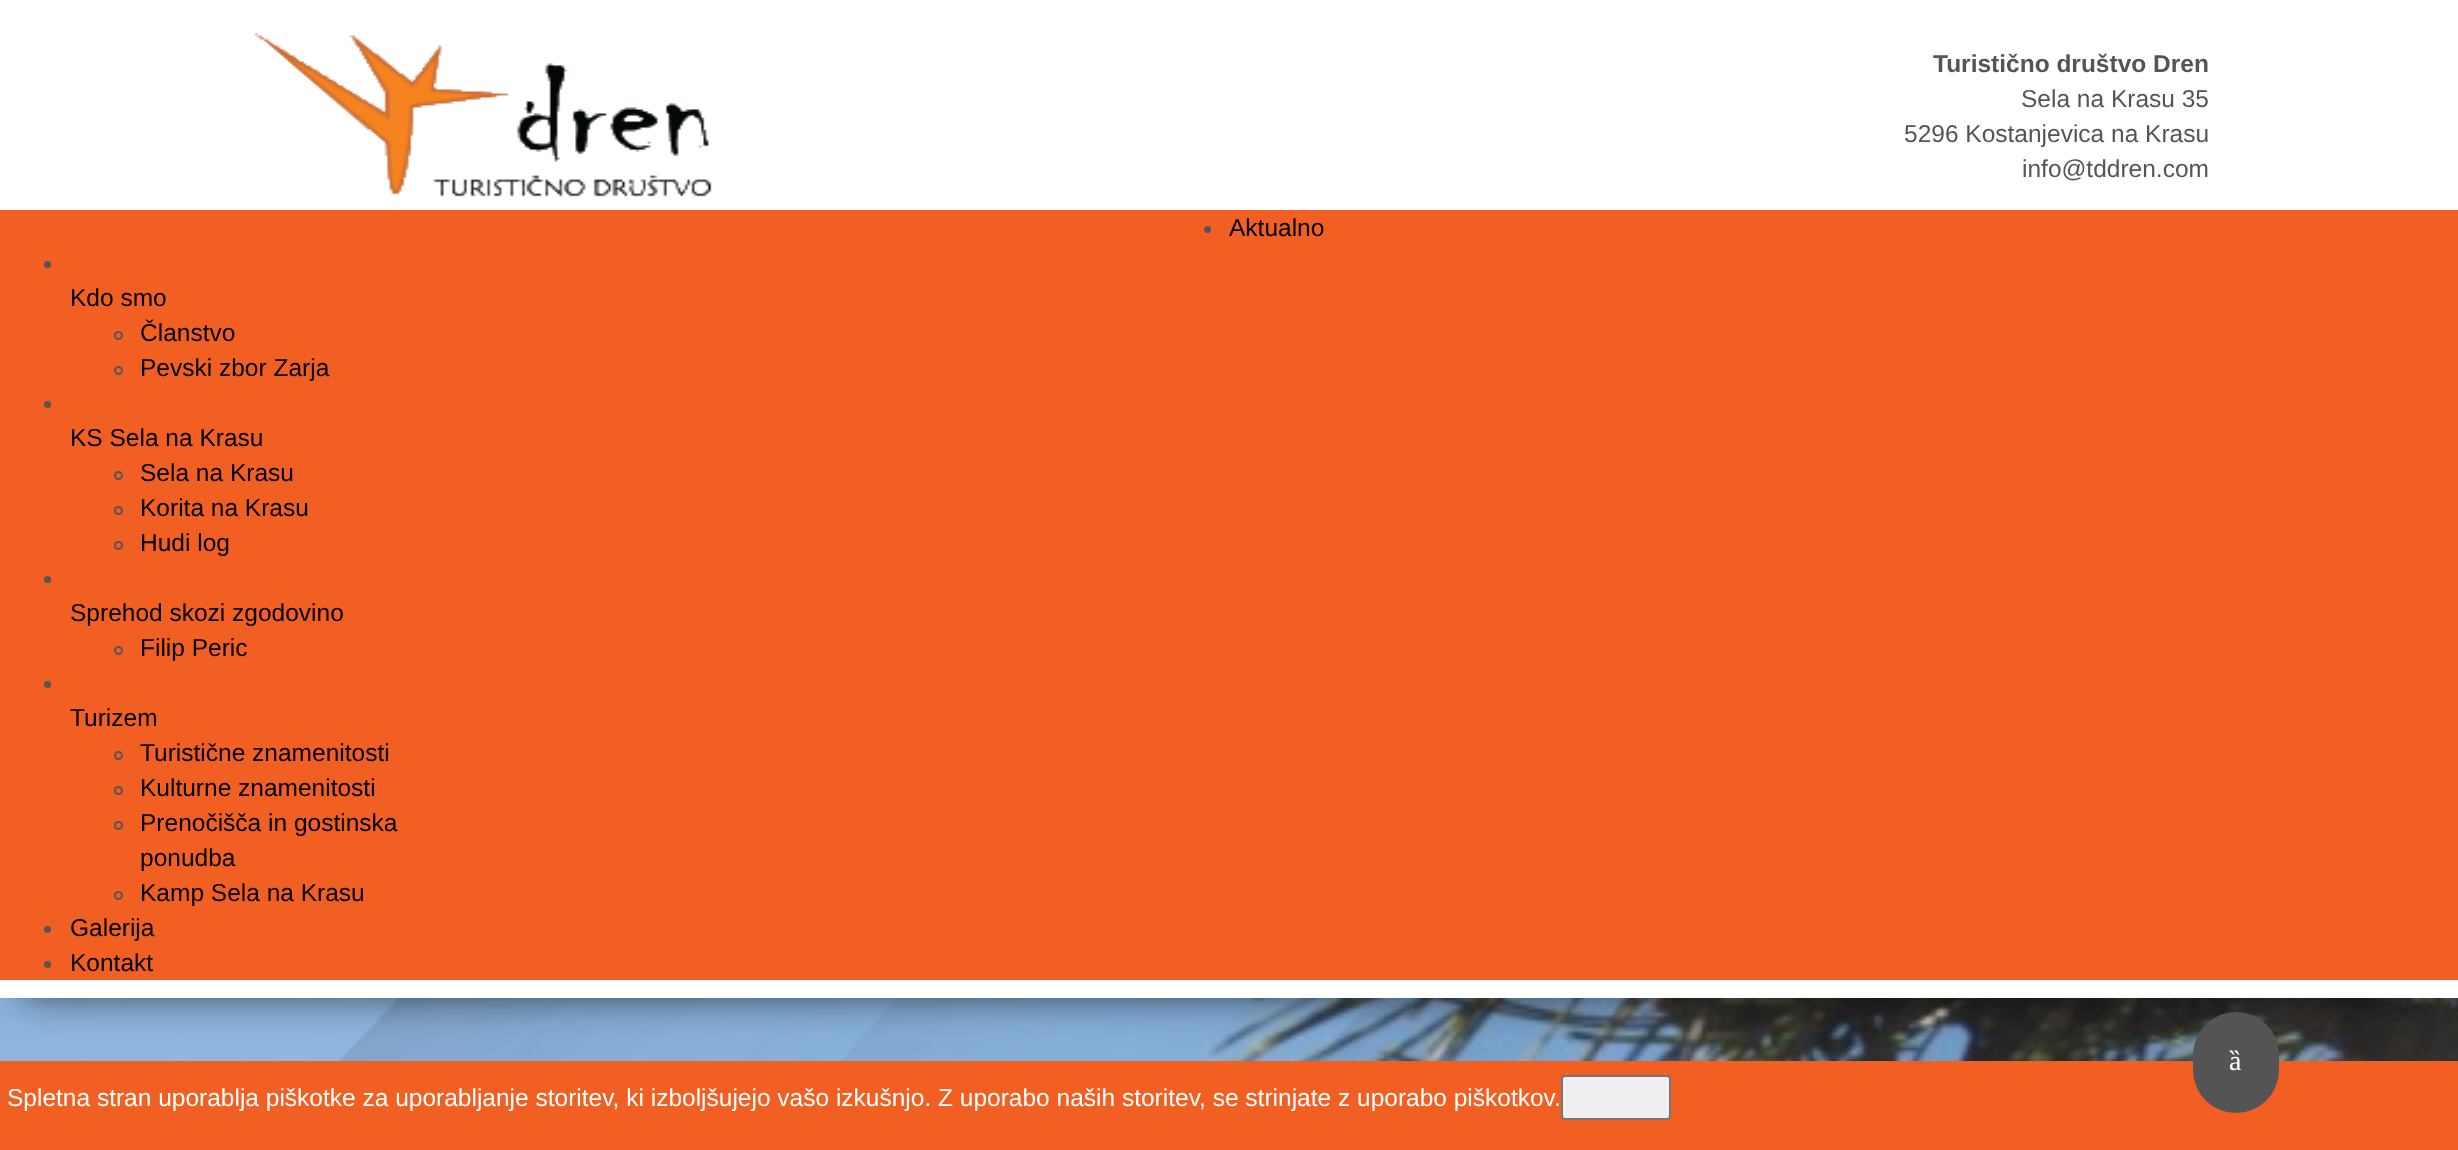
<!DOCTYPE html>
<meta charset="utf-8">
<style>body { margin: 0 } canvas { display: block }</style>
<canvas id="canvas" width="2458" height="1150"></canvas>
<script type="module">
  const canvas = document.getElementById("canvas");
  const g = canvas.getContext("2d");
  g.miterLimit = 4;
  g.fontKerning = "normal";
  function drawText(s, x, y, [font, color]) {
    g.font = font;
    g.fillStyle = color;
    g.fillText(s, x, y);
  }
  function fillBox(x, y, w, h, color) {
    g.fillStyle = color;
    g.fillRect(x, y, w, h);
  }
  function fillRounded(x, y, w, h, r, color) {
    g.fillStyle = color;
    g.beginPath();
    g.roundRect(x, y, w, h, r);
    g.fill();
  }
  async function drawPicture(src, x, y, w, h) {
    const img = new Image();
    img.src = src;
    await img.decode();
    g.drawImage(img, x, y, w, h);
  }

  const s1 = ["bold 24.5px Liberation Sans", "#555555"];
  const s2 = ["24.5px Liberation Sans", "#555555"];
  const s3 = ["24.5px Liberation Sans", "#000000"];
  const s4 = ["28px Liberation Serif", "#FFFFFF"];
  const s5 = ["24.5px Liberation Sans", "#FFFFFF"];

  fillBox(0, 0, 2458, 1150, "#FFFFFF");
  await drawPicture("pic1.png", 254, 32, 458, 165);
  drawText("Turistično društvo Dren", 1933, 72, s1);
  drawText("Sela na Krasu 35", 2021, 107, s2);
  drawText("5296 Kostanjevica na Krasu", 1904, 142, s2);
  drawText("info@tddren.com", 2022, 177, s2);
  await drawPicture("pic2.png", 0, 998, 2458, 63);
  await drawPicture("pic3.png", 0, 998, 2458, 63);
  g.fillStyle = "rgba(0, 0, 0, 0.3)";
  g.filter = "blur(17.5px)";
  g.beginPath();
  g.roundRect(18, 604, 2423, 394, 26);
  g.fill();
  g.filter = "none";
  g.filter = "blur(17.5px)";
  g.beginPath();
  g.roundRect(18, 604, 2423, 394, 26);
  g.fill();
  g.filter = "none";
  fillBox(0, 980, 2458, 18, "#FFFFFF");
  fillBox(0, 210, 2458, 770, "#F15F22");
  g.fillStyle = "#555555";
  g.beginPath();
  g.arc(1207.5, 229.5, 3.5, 0, Math.PI * 2);
  g.fill();
  drawText("Aktualno", 1229, 236, s3);
  g.fillStyle = "#555555";
  g.beginPath();
  g.arc(47.5, 264.5, 3.5, 0, Math.PI * 2);
  g.fill();
  drawText("Kdo smo", 70, 306, s3);
  g.beginPath();
  g.arc(118.5, 335.5, 3.5, 0, Math.PI * 2);
  g.strokeStyle = "#555555";
  g.lineWidth = 2;
  g.stroke();
  drawText("Članstvo", 140, 341, s3);
  g.beginPath();
  g.arc(118.5, 370.5, 3.5, 0, Math.PI * 2);
  g.stroke();
  drawText("Pevski zbor Zarja", 140, 376, s3);
  g.fillStyle = "#555555";
  g.beginPath();
  g.arc(47.5, 404.5, 3.5, 0, Math.PI * 2);
  g.fill();
  drawText("KS Sela na Krasu", 70, 446, s3);
  g.beginPath();
  g.arc(118.5, 475.5, 3.5, 0, Math.PI * 2);
  g.stroke();
  drawText("Sela na Krasu", 140, 481, s3);
  g.beginPath();
  g.arc(118.5, 510.5, 3.5, 0, Math.PI * 2);
  g.stroke();
  drawText("Korita na Krasu", 140, 516, s3);
  g.beginPath();
  g.arc(118.5, 545.5, 3.5, 0, Math.PI * 2);
  g.stroke();
  drawText("Hudi log", 140, 551, s3);
  g.fillStyle = "#555555";
  g.beginPath();
  g.arc(47.5, 579.5, 3.5, 0, Math.PI * 2);
  g.fill();
  drawText("Sprehod skozi zgodovino", 70, 621, s3);
  g.beginPath();
  g.arc(118.5, 650.5, 3.5, 0, Math.PI * 2);
  g.stroke();
  drawText("Filip Peric", 140, 656, s3);
  g.fillStyle = "#555555";
  g.beginPath();
  g.arc(47.5, 684.5, 3.5, 0, Math.PI * 2);
  g.fill();
  drawText("Turizem", 70, 726, s3);
  g.beginPath();
  g.arc(118.5, 755.5, 3.5, 0, Math.PI * 2);
  g.stroke();
  drawText("Turistične znamenitosti", 140, 761, s3);
  g.beginPath();
  g.arc(118.5, 790.5, 3.5, 0, Math.PI * 2);
  g.stroke();
  drawText("Kulturne znamenitosti", 140, 796, s3);
  g.beginPath();
  g.arc(118.5, 825.5, 3.5, 0, Math.PI * 2);
  g.stroke();
  drawText("Prenočišča in gostinska", 140, 831, s3);
  drawText("ponudba", 140, 866, s3);
  g.beginPath();
  g.arc(118.5, 895.5, 3.5, 0, Math.PI * 2);
  g.stroke();
  drawText("Kamp Sela na Krasu", 140, 901, s3);
  g.fillStyle = "#555555";
  g.beginPath();
  g.arc(47.5, 929.5, 3.5, 0, Math.PI * 2);
  g.fill();
  drawText("Galerija", 70, 936, s3);
  g.fillStyle = "#555555";
  g.beginPath();
  g.arc(47.5, 964.5, 3.5, 0, Math.PI * 2);
  g.fill();
  drawText("Kontakt", 70, 971, s3);
  fillBox(0, 1061, 2458, 89, "#F15F22");
  fillRounded(2193, 1012, 86, 101, 43, "#545454");
  drawText("ȁ", 2229, 1070, s4);
  drawText("Spletna stran uporablja piškotke za uporabljanje storitev, ki izboljšujejo vašo izkušnjo. Z uporabo naših storitev, se strinjate z uporabo piškotkov.", 7, 1106, s5);
  g.fillStyle = "#EFEFEF";
  g.beginPath();
  g.roundRect(1562, 1076, 108, 43, 3);
  g.fill();
  g.strokeStyle = "#767676";
  g.stroke();
</script>
